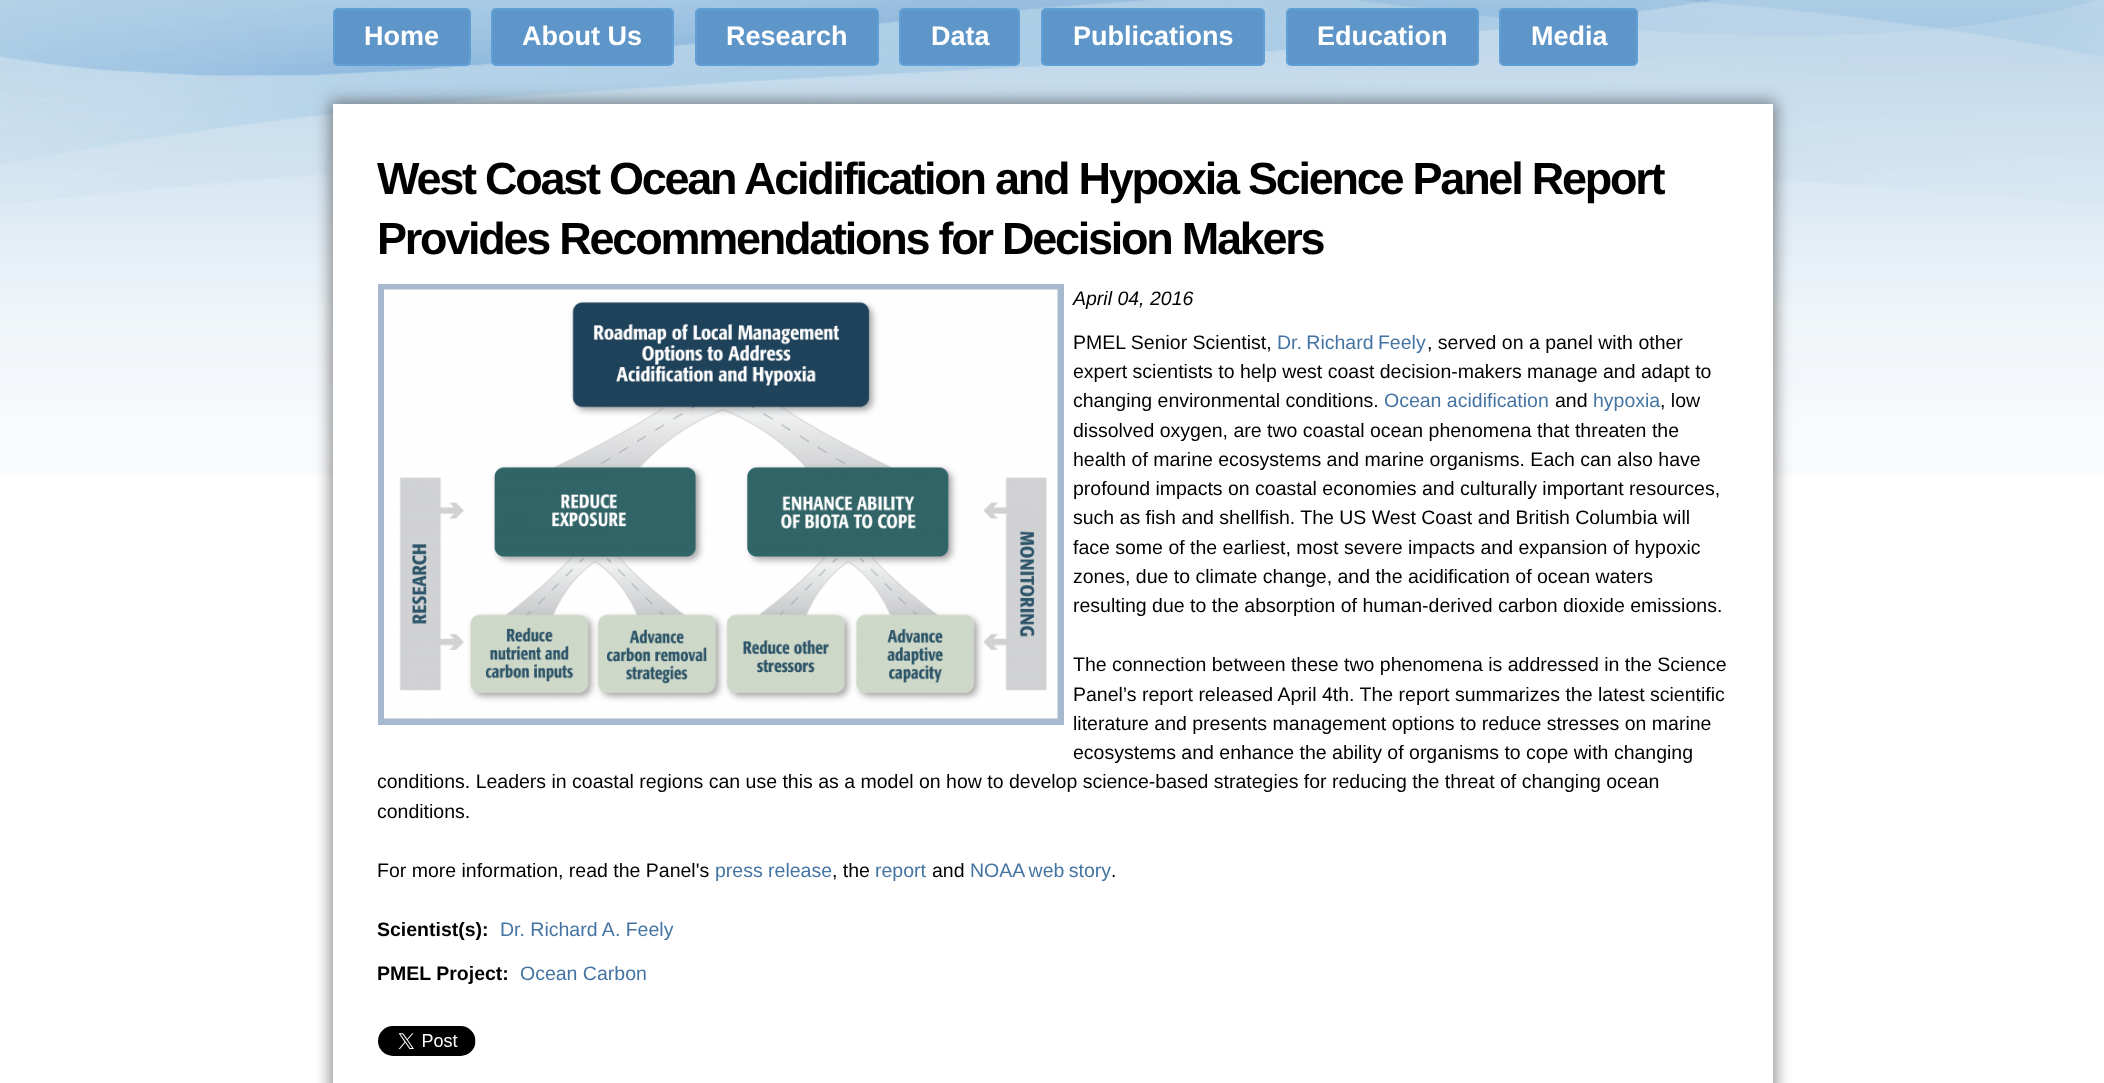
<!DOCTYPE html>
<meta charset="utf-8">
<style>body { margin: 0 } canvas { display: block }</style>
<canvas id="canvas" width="2104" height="1083"></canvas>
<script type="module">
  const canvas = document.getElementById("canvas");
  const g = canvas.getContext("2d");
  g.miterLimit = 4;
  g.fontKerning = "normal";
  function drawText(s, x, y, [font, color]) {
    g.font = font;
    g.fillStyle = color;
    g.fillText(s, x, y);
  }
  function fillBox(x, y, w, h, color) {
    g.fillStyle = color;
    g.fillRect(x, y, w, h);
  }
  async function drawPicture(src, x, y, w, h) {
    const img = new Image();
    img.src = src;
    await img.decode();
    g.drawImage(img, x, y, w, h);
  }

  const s1 = ["bold 27px Liberation Sans", "#FFFFFF"];
  const s2 = ["bold 45px Liberation Sans", "#000000"];
  const s3 = ["italic 19.5px Liberation Sans", "#000000"];
  const s4 = ["19.5px Liberation Sans", "#000000"];
  const s5 = ["19.5px Liberation Sans", "#4474A3"];
  const s6 = ["bold 19.5px Liberation Sans", "#000000"];

  fillBox(0, 0, 2104, 1083, "#FFFFFF");
  await drawPicture("pic1.png", 0, 0, 2104, 475);
  g.fillStyle = "#5E96C9";
  g.beginPath();
  g.roundRect(334, 9, 136, 56, 4);
  g.fill();
  g.strokeStyle = "#5F9FD6";
  g.lineWidth = 2;
  g.stroke();
  drawText("Home", 364, 45, s1);
  g.fillStyle = "#5E96C9";
  g.beginPath();
  g.roundRect(492, 9, 181, 56, 4);
  g.fill();
  g.stroke();
  drawText("About Us", 522, 45, s1);
  g.fillStyle = "#5E96C9";
  g.beginPath();
  g.roundRect(696, 9, 182, 56, 4);
  g.fill();
  g.stroke();
  drawText("Research", 726, 45, s1);
  g.fillStyle = "#5E96C9";
  g.beginPath();
  g.roundRect(900, 9, 119, 56, 4);
  g.fill();
  g.stroke();
  drawText("Data", 931, 45, s1);
  g.fillStyle = "#5E96C9";
  g.beginPath();
  g.roundRect(1042, 9, 222, 56, 4);
  g.fill();
  g.stroke();
  drawText("Publications", 1073, 45, s1);
  g.fillStyle = "#5E96C9";
  g.beginPath();
  g.roundRect(1287, 9, 191, 56, 4);
  g.fill();
  g.stroke();
  drawText("Education", 1317, 45, s1);
  g.fillStyle = "#5E96C9";
  g.beginPath();
  g.roundRect(1500, 9, 137, 56, 4);
  g.fill();
  g.stroke();
  drawText("Media", 1531, 45, s1);
  g.fillStyle = "rgba(68, 68, 68, 0.6)";
  g.filter = "blur(7.5px)";
  g.beginPath();
  g.rect(330, 101, 1446, 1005);
  g.fill();
  g.filter = "none";
  fillBox(333, 104, 1440, 979, "#FFFFFF");
  g.letterSpacing = "-2.25px";
  drawText("West Coast Ocean Acidification and Hypoxia Science Panel Report", 377, 194, s2);
  drawText("Provides Recommendations for Decision Makers", 377, 254, s2);
  fillBox(378, 284, 686, 441, "#A7B9CE");
  await drawPicture("pic2.png", 384, 289, 674, 430);
  g.letterSpacing = "0px";
  drawText("April 04, 2016", 1073, 305, s3);
  drawText("PMEL Senior Scientist,", 1073, 349, s4);
  g.wordSpacing = "-1px";
  drawText("Dr. Richard Feely", 1277, 349, s5);
  g.wordSpacing = "0px";
  drawText(", served on a panel with other", 1427, 349, s4);
  drawText("expert scientists to help west coast decision-makers manage and adapt to", 1073, 378, s4);
  drawText("changing environmental conditions.", 1073, 407, s4);
  drawText("Ocean acidification", 1384, 407, s5);
  drawText("and", 1555, 407, s4);
  drawText("hypoxia", 1593, 407, s5);
  drawText(", low", 1660, 407, s4);
  drawText("dissolved oxygen, are two coastal ocean phenomena that threaten the", 1073, 437, s4);
  drawText("health of marine ecosystems and marine organisms. Each can also have", 1073, 466, s4);
  drawText("profound impacts on coastal economies and culturally important resources,", 1073, 495, s4);
  drawText("such as fish and shellfish. The US West Coast and British Columbia will", 1073, 524, s4);
  drawText("face some of the earliest, most severe impacts and expansion of hypoxic", 1073, 554, s4);
  drawText("zones, due to climate change, and the acidification of ocean waters", 1073, 583, s4);
  drawText("resulting due to the absorption of human-derived carbon dioxide emissions.", 1073, 612, s4);
  drawText("The connection between these two phenomena is addressed in the Science", 1073, 671, s4);
  drawText("Panel’s report released April 4th. The report summarizes the latest scientific", 1073, 701, s4);
  drawText("literature and presents management options to reduce stresses on marine", 1073, 730, s4);
  drawText("ecosystems and enhance the ability of organisms to cope with changing", 1073, 759, s4);
  drawText("conditions. Leaders in coastal regions can use this as a model on how to develop science-based strategies for reducing the threat of changing ocean", 377, 788, s4);
  drawText("conditions.", 377, 818, s4);
  drawText("For more information, read the Panel's", 377, 877, s4);
  drawText("press release", 715, 877, s5);
  drawText(", the", 832, 877, s4);
  drawText("report", 875, 877, s5);
  drawText("and", 932, 877, s4);
  g.wordSpacing = "-1px";
  drawText("NOAA web story", 970, 877, s5);
  g.wordSpacing = "0px";
  drawText(".", 1111, 877, s4);
  drawText("Scientist(s):", 377, 936, s6);
  drawText("Dr. Richard A. Feely", 500, 936, s5);
  drawText("PMEL Project:", 377, 980, s6);
  drawText("Ocean Carbon", 520, 980, s5);
  await drawPicture("pic3.png", 378, 1026, 98, 30);
</script>
